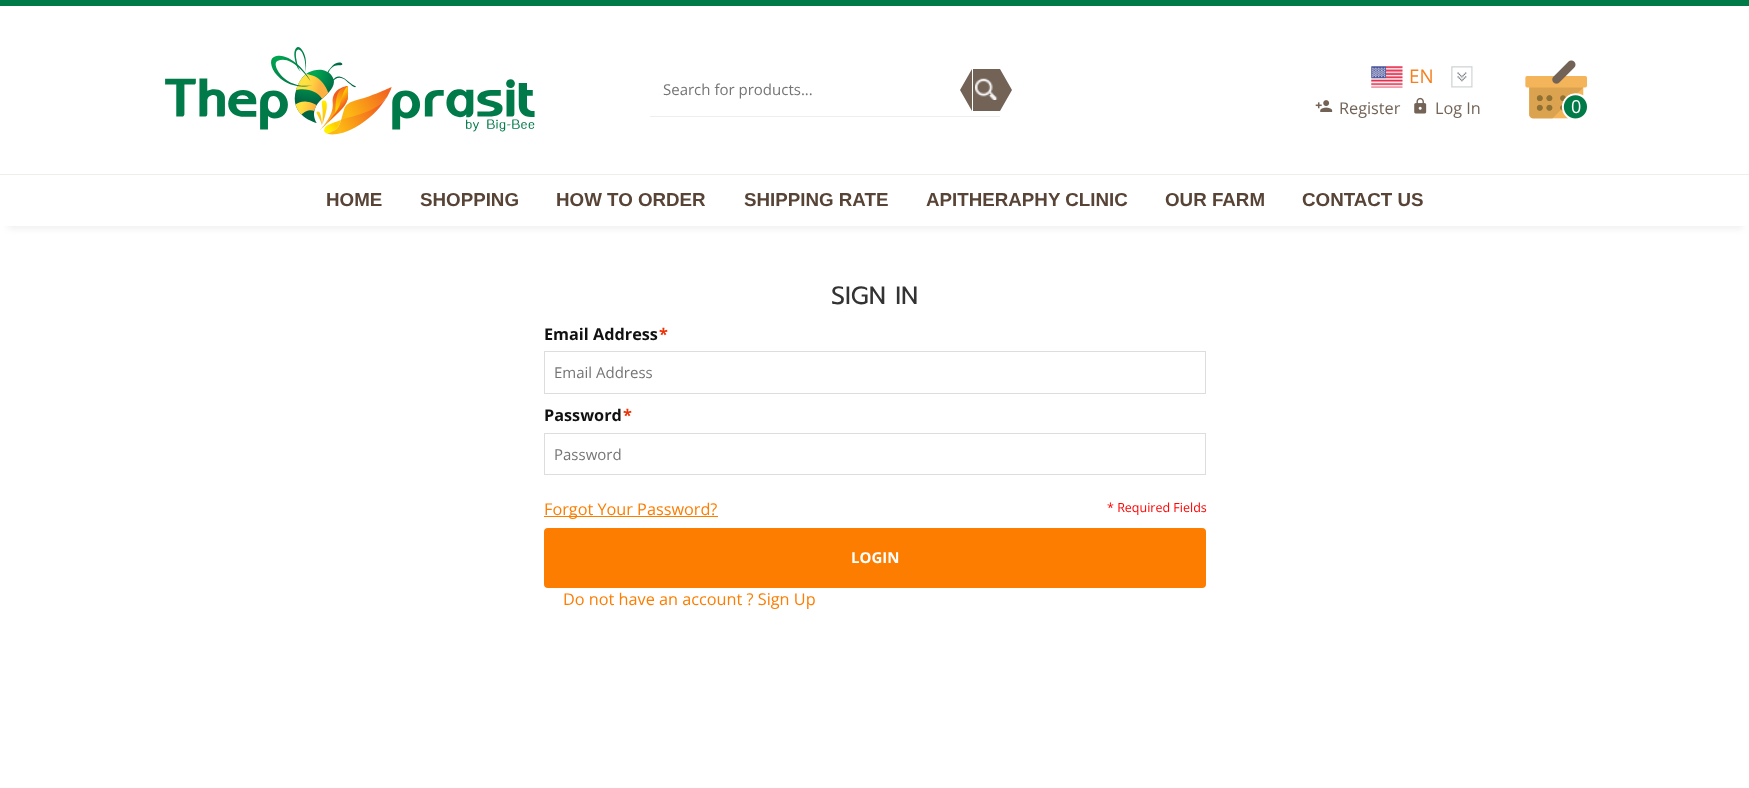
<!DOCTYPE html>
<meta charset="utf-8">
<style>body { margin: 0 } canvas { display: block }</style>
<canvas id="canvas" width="1749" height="788"></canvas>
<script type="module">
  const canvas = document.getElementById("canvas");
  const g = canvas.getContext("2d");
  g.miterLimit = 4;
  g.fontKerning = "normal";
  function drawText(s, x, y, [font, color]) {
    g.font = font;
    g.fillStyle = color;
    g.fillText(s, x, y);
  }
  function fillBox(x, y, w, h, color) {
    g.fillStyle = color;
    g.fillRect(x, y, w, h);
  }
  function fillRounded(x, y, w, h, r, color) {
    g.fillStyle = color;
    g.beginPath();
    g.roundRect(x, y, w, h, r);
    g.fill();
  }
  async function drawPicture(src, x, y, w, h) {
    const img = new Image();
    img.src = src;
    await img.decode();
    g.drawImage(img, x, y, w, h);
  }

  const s1 = ["15px Open Sans", "#757575"];
  const s2 = ["bold 18.75px Liberation Sans", "#574437"];
  const s3 = ["18.75px Open Sans", "#F5801F"];
  const s4 = ["16.25px Open Sans", "#736357"];
  const s5 = ["18px Open Sans", "#FFFFFF"];
  const s6 = ["25px Prompt", "#333333"];
  const s7 = ["bold 16.25px Open Sans", "#111111"];
  const s8 = ["bold 16.25px Open Sans", "#EB340A"];
  const s9 = ["16.25px Open Sans", "#FC7D00"];
  const s10 = ["12.5px Open Sans", "#FF0000"];
  const s11 = ["bold 15px Open Sans", "#FFFFFF"];

  fillBox(0, 0, 1749, 788, "#FFFFFF");
  fillBox(0, 0, 1749, 6, "#007A47");
  g.save();
  g.beginPath();
  g.rect(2, 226, 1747, 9);
  g.clip();
  g.fillStyle = "#F0F0F0";
  g.filter = "blur(3px)";
  g.beginPath();
  g.rect(8, 191, 1735, 38);
  g.fill();
  g.filter = "none";
  g.restore();
  fillBox(0, 174, 1749, 1, "#F0EEEA");
  fillBox(650, 116, 350, 1, "#F0EEEA");
  drawText("Search for products...", 663, 95, s1);
  fillBox(973, 69, 27, 42, "#736357");
  await drawPicture("pic1.png", 975, 78, 23, 22);
  g.beginPath();
  g.moveTo(972, 69);
  g.lineTo(972, 111);
  g.lineTo(960, 90);
  g.closePath();
  g.moveTo(1000, 111);
  g.lineTo(1000, 69);
  g.lineTo(1012, 90);
  g.closePath();
  g.fill();
  drawText("HOME", 326, 206, s2);
  drawText("SHOPPING", 420, 206, s2);
  drawText("HOW TO ORDER", 556, 206, s2);
  drawText("SHIPPING RATE", 744, 206, s2);
  drawText("APITHERAPHY CLINIC", 926, 206, s2);
  drawText("OUR FARM", 1165, 206, s2);
  drawText("CONTACT US", 1302, 206, s2);
  await drawPicture("pic2.png", 165, 47, 370, 88);
  await drawPicture("pic3.png", 1371, 66, 32, 22);
  drawText("EN", 1409, 83, s3);
  await drawPicture("pic4.png", 1451, 66, 22, 22);
  await drawPicture("pic5.png", 1315, 100, 18, 12);
  drawText("Register", 1339, 114, s4);
  await drawPicture("pic6.png", 1414, 97, 13, 17);
  drawText("Log In", 1435, 114, s4);
  await drawPicture("pic7.png", 1525, 60, 63, 59);
  drawText("0", 1571, 113, s5);
  drawText("SIGN IN", 831, 304, s6);
  drawText("Email Address", 544, 340, s7);
  drawText("*", 659, 340, s8);
  g.strokeStyle = "#DDDDDD";
  g.strokeRect(544.5, 351.5, 661, 42);
  drawText("Email Address", 554, 378, s1);
  drawText("Password", 544, 421, s7);
  drawText("*", 623, 421, s8);
  g.strokeRect(544.5, 433.5, 661, 41);
  drawText("Password", 554, 460, s1);
  fillBox(544, 516, 174, 1, "#FC7D00");
  drawText("Forgot Your Password?", 544, 515, s9);
  drawText("* Required Fields", 1107, 512, s10);
  fillRounded(544, 528, 662, 60, 4, "#FC7D00");
  drawText("LOGIN", 851, 563, s11);
  drawText("Do not have an account ? Sign Up", 563, 605, s9);
</script>
